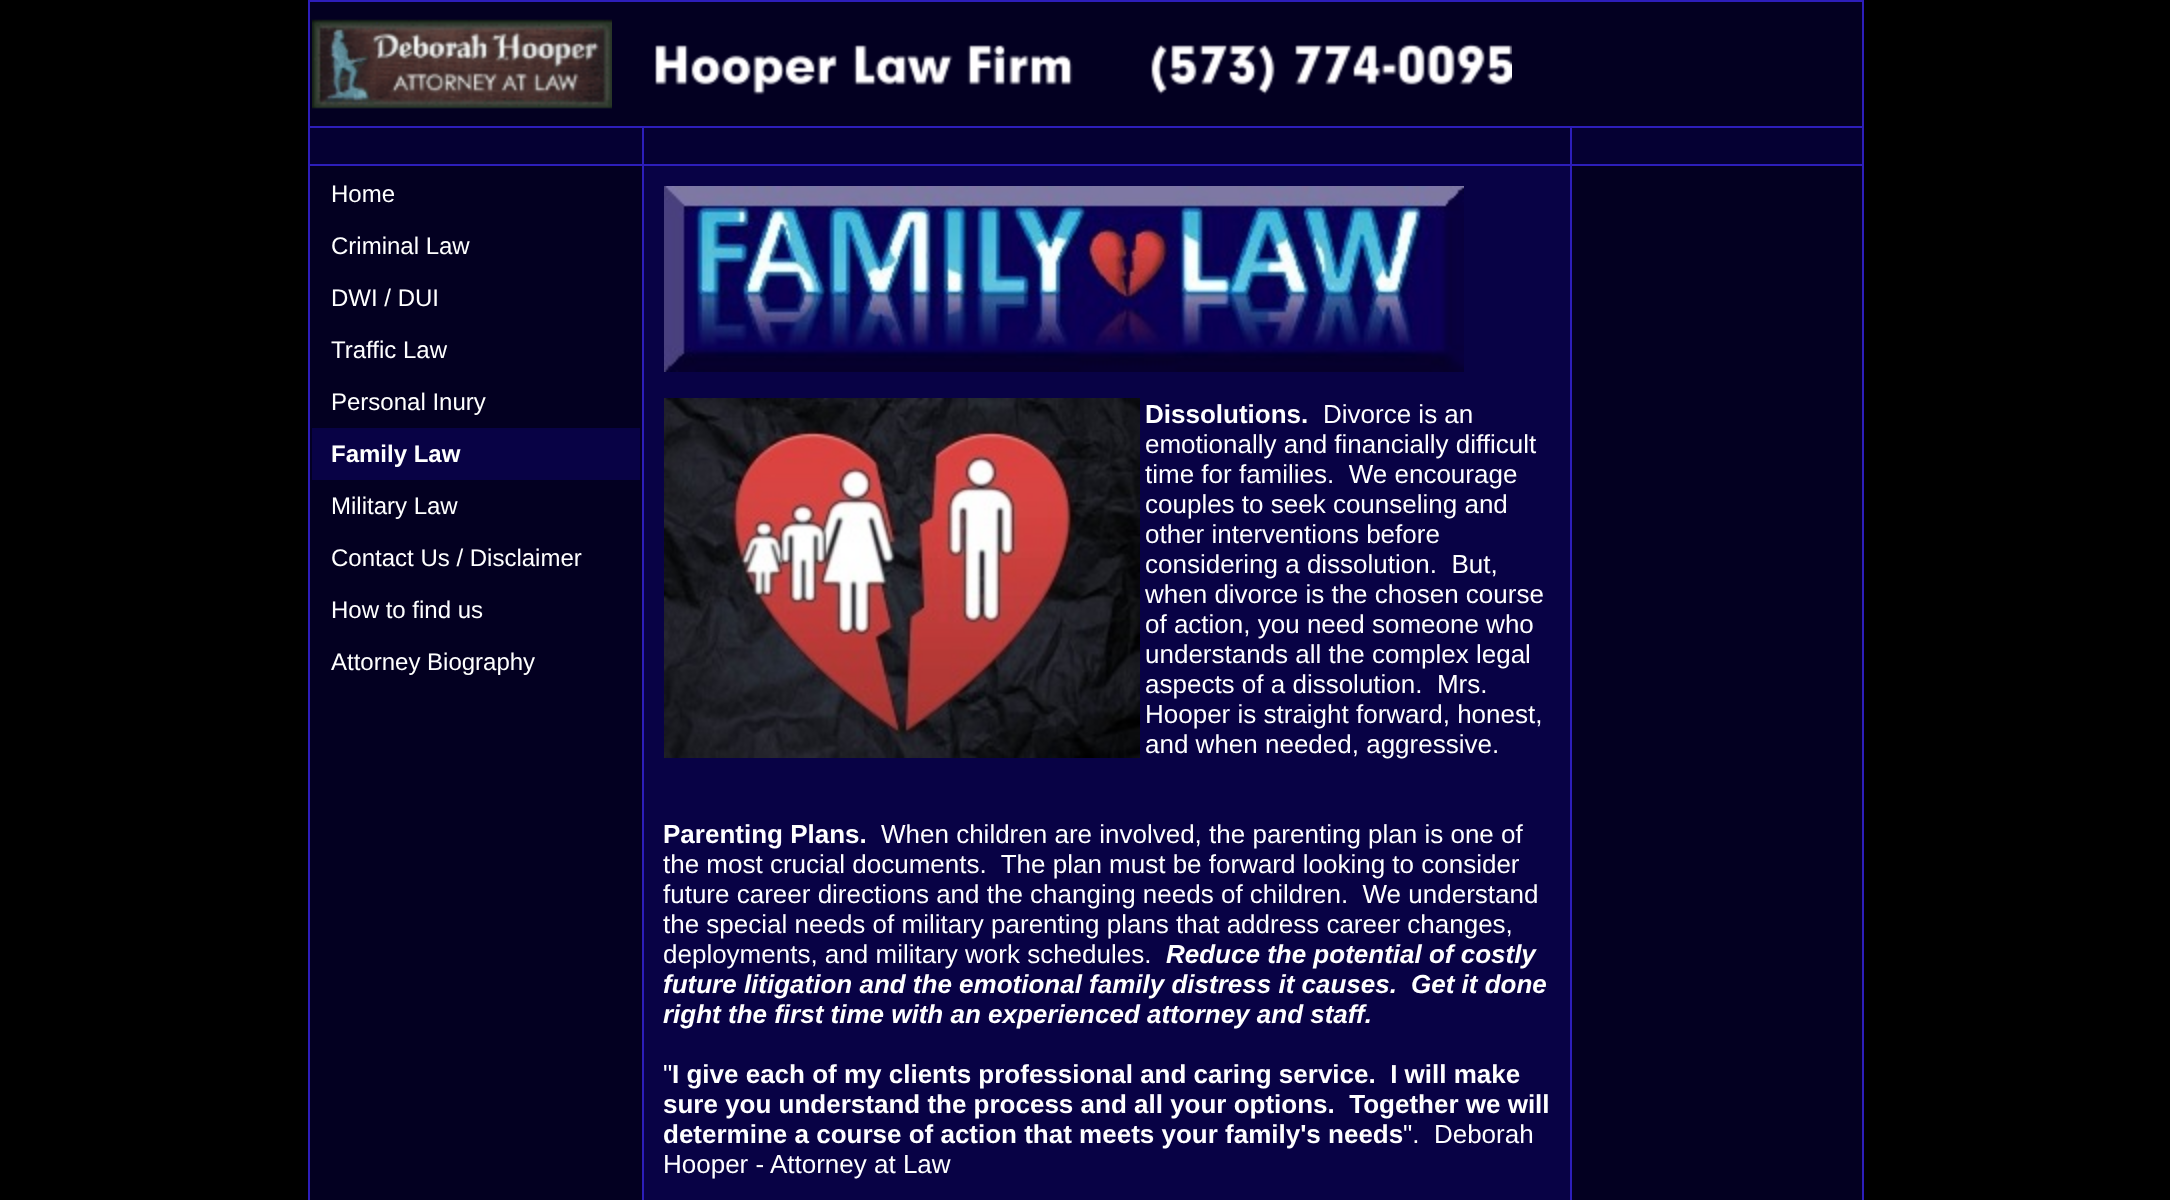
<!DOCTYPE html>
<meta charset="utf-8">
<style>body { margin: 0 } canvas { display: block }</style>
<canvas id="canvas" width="2170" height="1200"></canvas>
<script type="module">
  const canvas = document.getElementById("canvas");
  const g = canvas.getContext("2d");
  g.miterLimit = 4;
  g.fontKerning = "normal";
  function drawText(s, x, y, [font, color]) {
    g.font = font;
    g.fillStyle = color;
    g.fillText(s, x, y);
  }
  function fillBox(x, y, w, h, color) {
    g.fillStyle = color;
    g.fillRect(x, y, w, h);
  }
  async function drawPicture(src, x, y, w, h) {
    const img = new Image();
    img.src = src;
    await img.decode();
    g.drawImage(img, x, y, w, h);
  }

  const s1 = ["24px Liberation Sans", "#FFFFFF"];
  const s2 = ["bold 24px Liberation Sans", "#FFFFFF"];
  const s3 = ["bold 26px Liberation Sans", "#FFFFFF"];
  const s4 = ["26px Liberation Sans", "#FFFFFF"];
  const s5 = ["italic bold 26px Liberation Sans", "#FFFFFF"];

  fillBox(0, 0, 2170, 1200, "#000000");
  fillBox(308, 0, 1556, 1200, "#2D1EBA");
  fillBox(310, 2, 1552, 124, "#030021");
  await drawPicture("pic1.png", 312, 19, 300, 90);
  await drawPicture("pic2.png", 655, 43, 857, 52);
  fillBox(310, 128, 332, 36, "#050033");
  fillBox(644, 128, 926, 36, "#050033");
  fillBox(1572, 128, 290, 36, "#050033");
  fillBox(310, 166, 332, 1034, "#030021");
  drawText("Home", 331, 202, s1);
  drawText("Criminal Law", 331, 254, s1);
  drawText("DWI / DUI", 331, 306, s1);
  drawText("Traffic Law", 331, 358, s1);
  drawText("Personal Inury", 331, 410, s1);
  fillBox(312, 428, 328, 52, "#080245");
  drawText("Family Law", 331, 462, s2);
  drawText("Military Law", 331, 514, s1);
  drawText("Contact Us / Disclaimer", 331, 566, s1);
  drawText("How to find us", 331, 618, s1);
  drawText("Attorney Biography", 331, 670, s1);
  fillBox(644, 166, 926, 1034, "#080245");
  await drawPicture("pic3.png", 664, 186, 800, 186);
  await drawPicture("pic4.png", 664, 398, 476, 360);
  drawText("Dissolutions.", 1145, 423, s3);
  drawText("Divorce is an", 1323, 423, s4);
  drawText("emotionally and financially difficult", 1145, 453, s4);
  drawText("time for families.  We encourage", 1145, 483, s4);
  drawText("couples to seek counseling and", 1145, 513, s4);
  drawText("other interventions before", 1145, 543, s4);
  drawText("considering a dissolution.  But,", 1145, 573, s4);
  drawText("when divorce is the chosen course", 1145, 603, s4);
  drawText("of action, you need someone who", 1145, 633, s4);
  drawText("understands all the complex legal", 1145, 663, s4);
  drawText("aspects of a dissolution.  Mrs.", 1145, 693, s4);
  drawText("Hooper is straight forward, honest,", 1145, 723, s4);
  drawText("and when needed, aggressive.", 1145, 753, s4);
  drawText("Parenting Plans.", 663, 843, s3);
  drawText("When children are involved, the parenting plan is one of", 881, 843, s4);
  drawText("the most crucial documents.  The plan must be forward looking to consider", 663, 873, s4);
  drawText("future career directions and the changing needs of children.  We understand", 663, 903, s4);
  drawText("the special needs of military parenting plans that address career changes,", 663, 933, s4);
  drawText("deployments, and military work schedules.", 663, 963, s4);
  drawText("Reduce the potential of costly", 1166, 963, s5);
  drawText("future litigation and the emotional family distress it causes.", 663, 993, s5);
  drawText("Get it done", 1411, 993, s5);
  drawText("right the first time with an experienced attorney and staff.", 663, 1023, s5);
  drawText("\"", 663, 1083, s4);
  drawText("I give each of my clients professional and caring service.  I will make", 672, 1083, s3);
  drawText("sure you understand the process and all your options.  Together we will", 663, 1113, s3);
  drawText("determine a course of action that meets your family's needs", 663, 1143, s3);
  drawText("\".  Deborah", 1403, 1143, s4);
  drawText("Hooper - Attorney at Law", 663, 1173, s4);
  fillBox(1572, 166, 290, 1034, "#030021");
</script>
